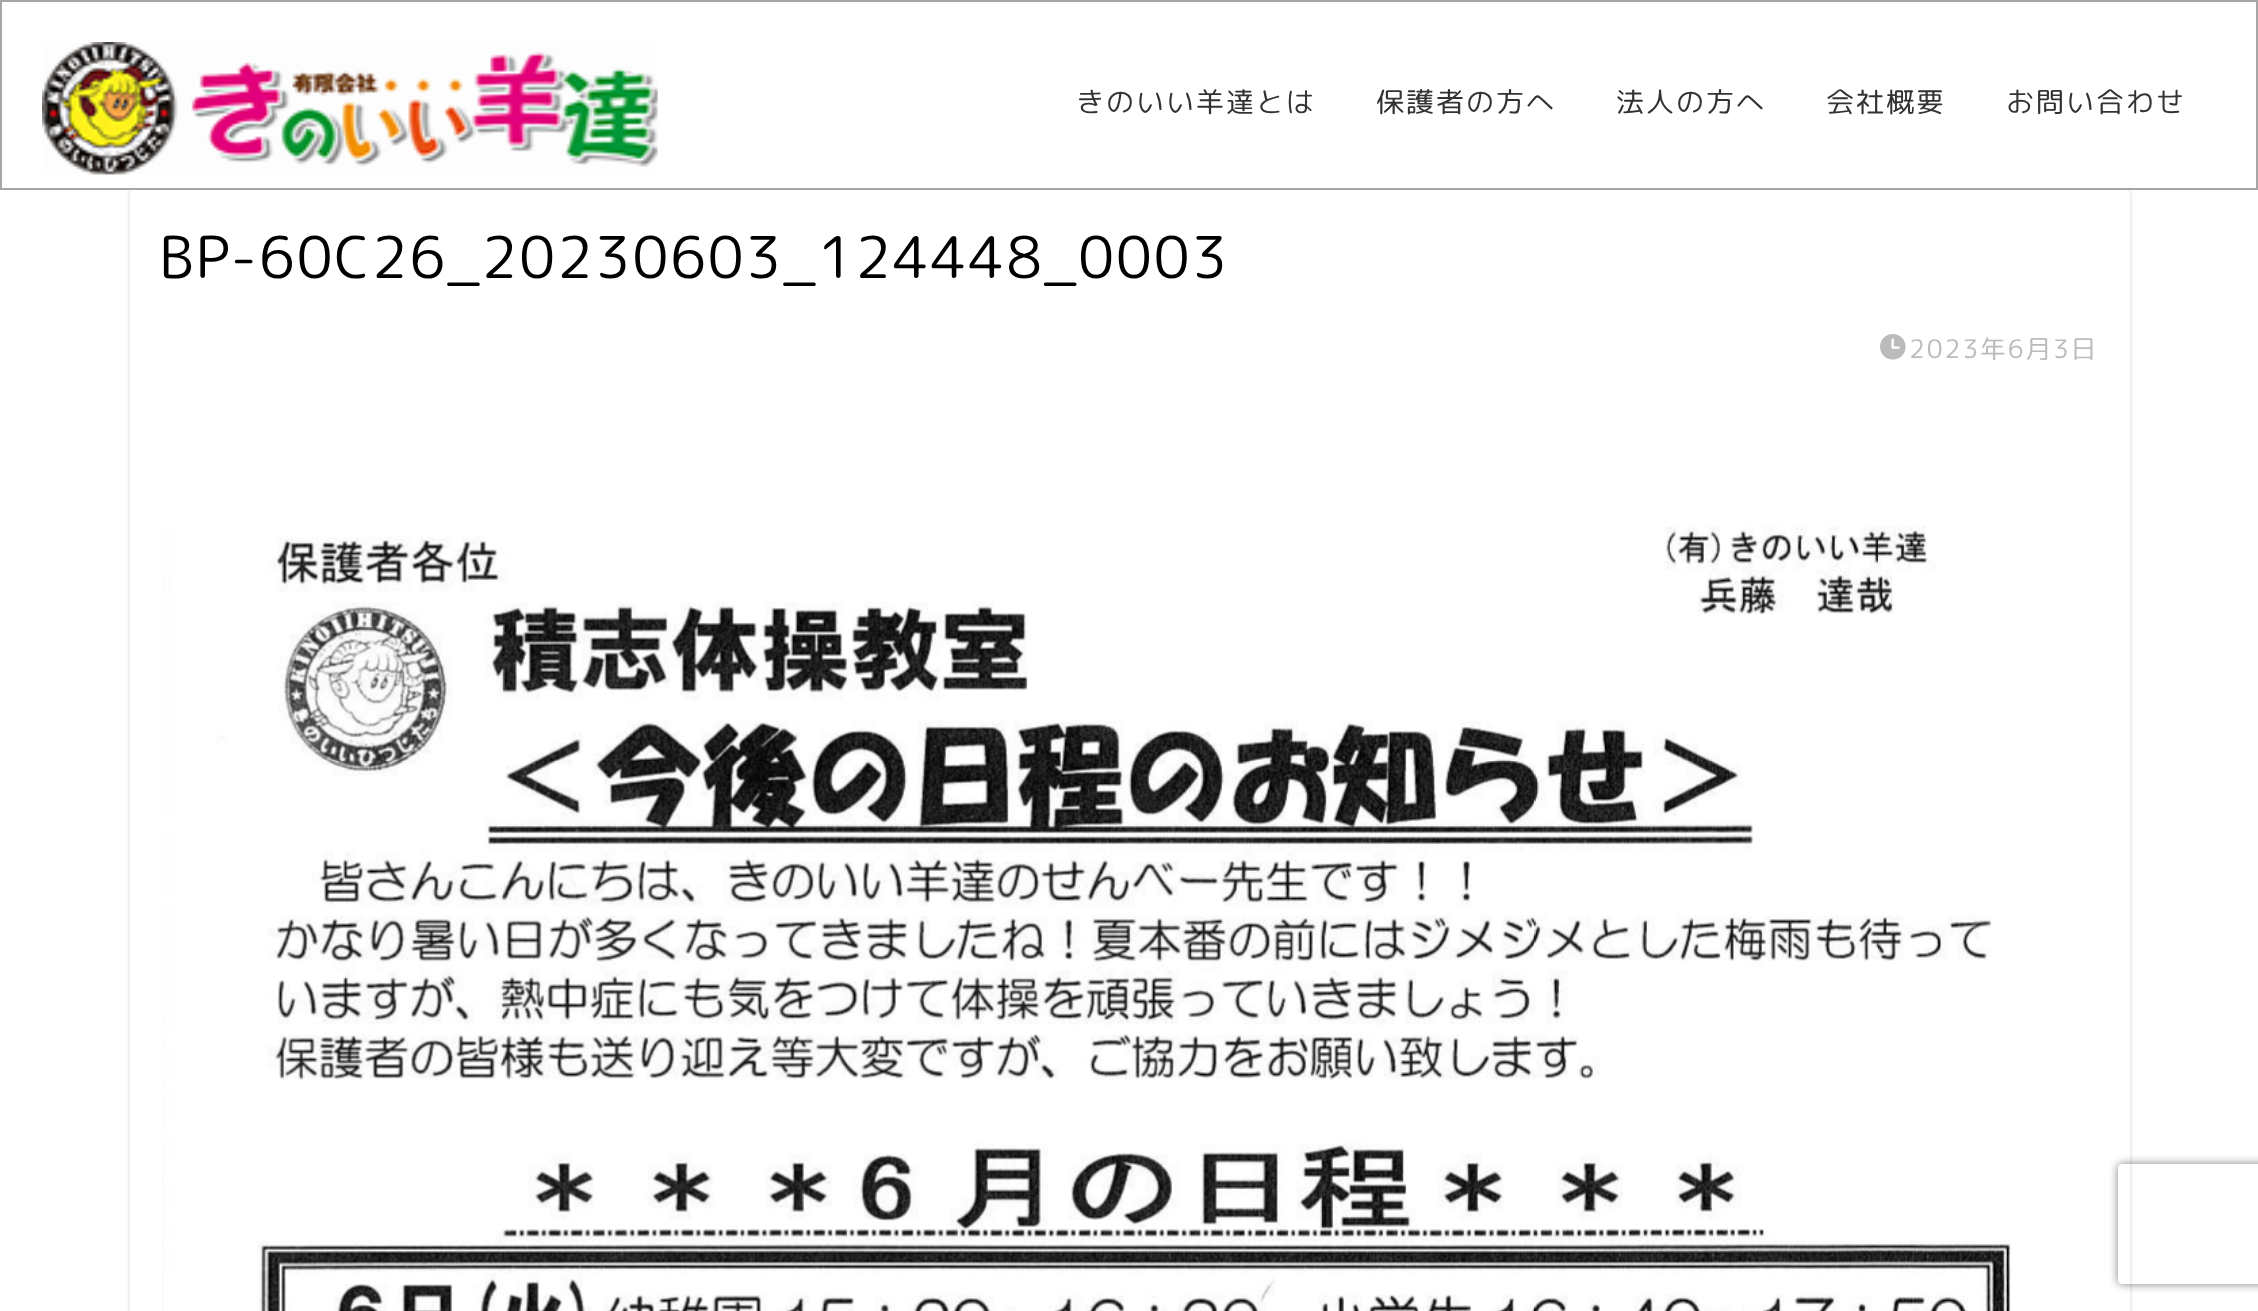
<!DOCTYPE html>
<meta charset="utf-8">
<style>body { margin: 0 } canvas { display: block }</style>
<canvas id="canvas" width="2258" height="1311"></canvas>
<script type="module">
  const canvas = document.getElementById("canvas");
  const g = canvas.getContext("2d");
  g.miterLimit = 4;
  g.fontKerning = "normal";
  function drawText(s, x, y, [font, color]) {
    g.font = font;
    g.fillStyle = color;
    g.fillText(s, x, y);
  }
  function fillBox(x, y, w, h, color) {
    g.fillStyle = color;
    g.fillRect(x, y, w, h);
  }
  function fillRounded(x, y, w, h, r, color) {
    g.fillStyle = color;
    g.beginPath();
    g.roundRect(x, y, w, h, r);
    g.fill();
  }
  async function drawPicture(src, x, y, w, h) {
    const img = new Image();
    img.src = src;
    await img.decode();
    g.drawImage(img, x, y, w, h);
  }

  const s1 = ["28px 'Rounded Mplus 1c'", "#333333"];
  const s2 = ["57.6px 'Rounded Mplus 1c'", "#000000"];
  const s3 = ["25.5px 'Rounded Mplus 1c'", "#BBBBBB"];

  fillBox(0, 0, 2258, 1311, "#FFFFFF");
  g.fillStyle = "rgba(0, 0, 0, 0.18)";
  g.filter = "blur(2px)";
  g.beginPath();
  g.roundRect(130, 190, 2000, 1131, 4);
  g.fill();
  g.filter = "none";
  fillBox(132, 187, 1996, 1, "#FFFFFF");
  g.strokeStyle = "#A6A6A6";
  g.lineWidth = 2;
  g.strokeRect(1, 1, 2256, 188);
  await drawPicture("pic1.png", 42, 42, 616, 133);
  g.letterSpacing = "2px";
  drawText("きのいい羊達とは", 1076, 112, s1);
  drawText("保護者の方へ", 1376, 112, s1);
  drawText("法人の方へ", 1616, 112, s1);
  drawText("会社概要", 1826, 112, s1);
  drawText("お問い合わせ", 2006, 112, s1);
  fillRounded(130, 190, 2000, 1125, 4, "#FFFFFF");
  drawText("BP-60C26_20230603_124448_0003", 159, 278, s2);
  await drawPicture("pic2.png", 1880, 334, 26, 26);
  drawText("2023年6月3日", 1909, 358, s3);
  await drawPicture("pic3.png", 162, 526, 1850, 785);
  g.save();
  g.beginPath();
  g.moveTo(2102, 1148);
  g.lineTo(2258, 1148);
  g.lineTo(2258, 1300);
  g.lineTo(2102, 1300);
  g.closePath();
  g.moveTo(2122, 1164);
  g.lineTo(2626, 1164);
  g.bezierCurveTo(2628, 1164, 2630, 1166, 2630, 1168);
  g.lineTo(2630, 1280);
  g.bezierCurveTo(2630, 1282, 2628, 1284, 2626, 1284);
  g.lineTo(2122, 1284);
  g.bezierCurveTo(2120, 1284, 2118, 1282, 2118, 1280);
  g.lineTo(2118, 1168);
  g.bezierCurveTo(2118, 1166, 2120, 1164, 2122, 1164);
  g.closePath();
  g.clip("evenodd");
  g.fillStyle = "#808080";
  g.filter = "blur(5px)";
  g.beginPath();
  g.roundRect(2118, 1164, 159, 120, 4);
  g.fill();
  g.filter = "none";
  g.restore();
</script>
